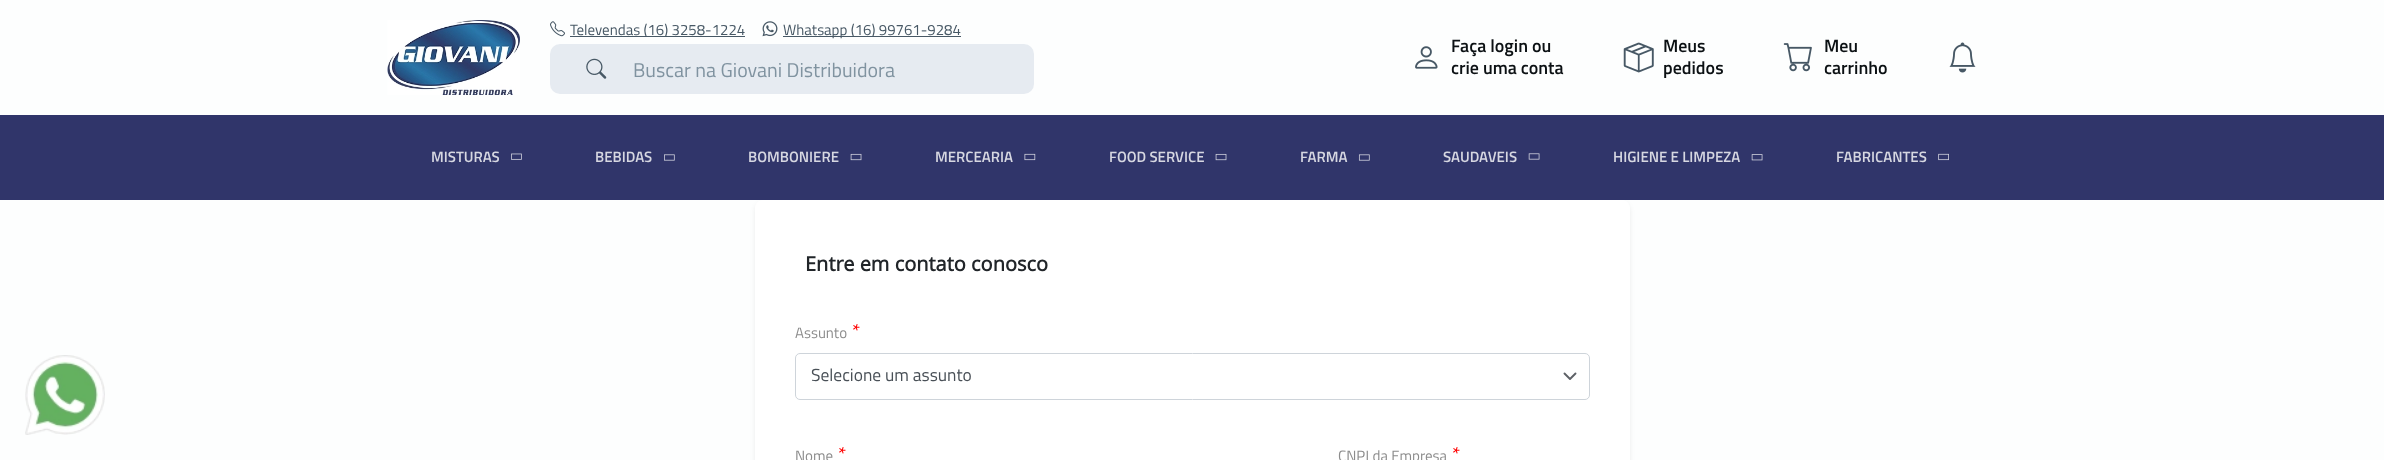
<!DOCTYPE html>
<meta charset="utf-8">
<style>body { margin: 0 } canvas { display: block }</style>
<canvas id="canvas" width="2384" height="460"></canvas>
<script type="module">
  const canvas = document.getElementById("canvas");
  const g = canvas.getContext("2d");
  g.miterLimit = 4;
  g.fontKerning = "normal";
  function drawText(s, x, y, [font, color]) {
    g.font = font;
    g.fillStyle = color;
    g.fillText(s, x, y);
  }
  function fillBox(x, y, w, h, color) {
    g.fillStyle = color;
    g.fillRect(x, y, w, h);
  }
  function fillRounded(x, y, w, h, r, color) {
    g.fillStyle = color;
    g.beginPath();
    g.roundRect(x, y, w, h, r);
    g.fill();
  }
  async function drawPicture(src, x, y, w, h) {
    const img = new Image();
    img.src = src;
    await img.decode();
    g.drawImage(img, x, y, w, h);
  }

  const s1 = ["15px Titillium Web", "#475865"];
  const s2 = ["20px Titillium Web", "#8093A0"];
  const s3 = ["600 18px Titillium Web", "#0C1114"];
  const s4 = ["600 15px Titillium Web", "#D6D7E1"];
  const s5 = ["bold 20px Open Sans", "#212529"];
  const s6 = ["15px Titillium Web", "#8C8C8C"];
  const s7 = ["20px Titillium Web", "#FF0000"];
  const s8 = ["17.5px Titillium Web", "#495057"];

  fillBox(0, 0, 2384, 460, "#FDFEFE");
  await drawPicture("pic1.png", 387, 20, 133, 75);
  await drawPicture("pic2.png", 550, 21, 15, 16);
  fillBox(570, 36, 175, 1, "#475865");
  drawText("Televendas (16) 3258-1224", 570, 35, s1);
  await drawPicture("pic3.png", 762, 21, 16, 16);
  fillBox(783, 36, 178, 1, "#475865");
  drawText("Whatsapp (16) 99761-9284", 783, 35, s1);
  fillRounded(550, 44, 484, 50, 10, "#E6EBF1");
  await drawPicture("pic4.png", 586, 58, 21, 21);
  drawText("Buscar na Giovani Distribuidora", 633, 77, s2);
  await drawPicture("pic5.png", 1415, 46, 23, 23);
  drawText("Faça login ou", 1451, 52, s3);
  drawText("crie uma conta", 1451, 74, s3);
  await drawPicture("pic6.png", 1623, 42, 31, 31);
  drawText("Meus", 1663, 52, s3);
  drawText("pedidos", 1663, 74, s3);
  await drawPicture("pic7.png", 1783, 43, 29, 29);
  drawText("Meu", 1824, 52, s3);
  drawText("carrinho", 1824, 74, s3);
  await drawPicture("pic8.png", 1949, 42, 27, 31);
  g.fillStyle = "rgba(0, 0, 0, 0.07)";
  g.filter = "blur(2.5px)";
  g.beginPath();
  g.roundRect(755, 203, 875, 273, 8);
  g.fill();
  g.filter = "none";
  fillBox(0, 115, 2384, 85, "#30356A");
  drawText("MISTURAS", 431, 162, s4);
  await drawPicture("pic9.png", 511, 153, 11, 7);
  drawText("BEBIDAS", 595, 162, s4);
  await drawPicture("pic10.png", 664, 154, 11, 7);
  drawText("BOMBONIERE", 748, 162, s4);
  await drawPicture("pic11.png", 850, 153, 12, 8);
  drawText("MERCEARIA", 935, 162, s4);
  await drawPicture("pic12.png", 1024, 153, 12, 8);
  drawText("FOOD SERVICE", 1109, 162, s4);
  await drawPicture("pic13.png", 1215, 153, 12, 8);
  drawText("FARMA", 1300, 162, s4);
  await drawPicture("pic14.png", 1358, 154, 12, 7);
  drawText("SAUDAVEIS", 1443, 162, s4);
  await drawPicture("pic15.png", 1528, 153, 12, 7);
  drawText("HIGIENE E LIMPEZA", 1613, 162, s4);
  await drawPicture("pic16.png", 1751, 154, 12, 7);
  drawText("FABRICANTES", 1836, 162, s4);
  await drawPicture("pic17.png", 1938, 153, 11, 8);
  await drawPicture("pic18.png", 25, 355, 80, 80);
  fillRounded(755, 200, 875, 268, 8, "#FFFFFF");
  drawText("Entre em contato conosco", 805, 271, s5);
  drawText("Assunto", 795, 338, s6);
  drawText("*", 852, 338, s7);
  g.beginPath();
  g.roundRect(795.5, 353.5, 794, 46, 4.5);
  g.strokeStyle = "#CED4DA";
  g.stroke();
  drawText("Selecione um assunto", 811, 381, s8);
  g.beginPath();
  g.moveTo(1564.5, 373.5);
  g.lineTo(1570, 379);
  g.lineTo(1575.5, 373.5);
  g.strokeStyle = "#5D6166";
  g.lineWidth = 1.9;
  g.lineCap = "round";
  g.lineJoin = "round";
  g.stroke();
  drawText("Nome", 795, 461, s6);
  drawText("*", 838, 461, s7);
  drawText("CNPJ da Empresa", 1338, 461, s6);
  drawText("*", 1452, 461, s7);
</script>
